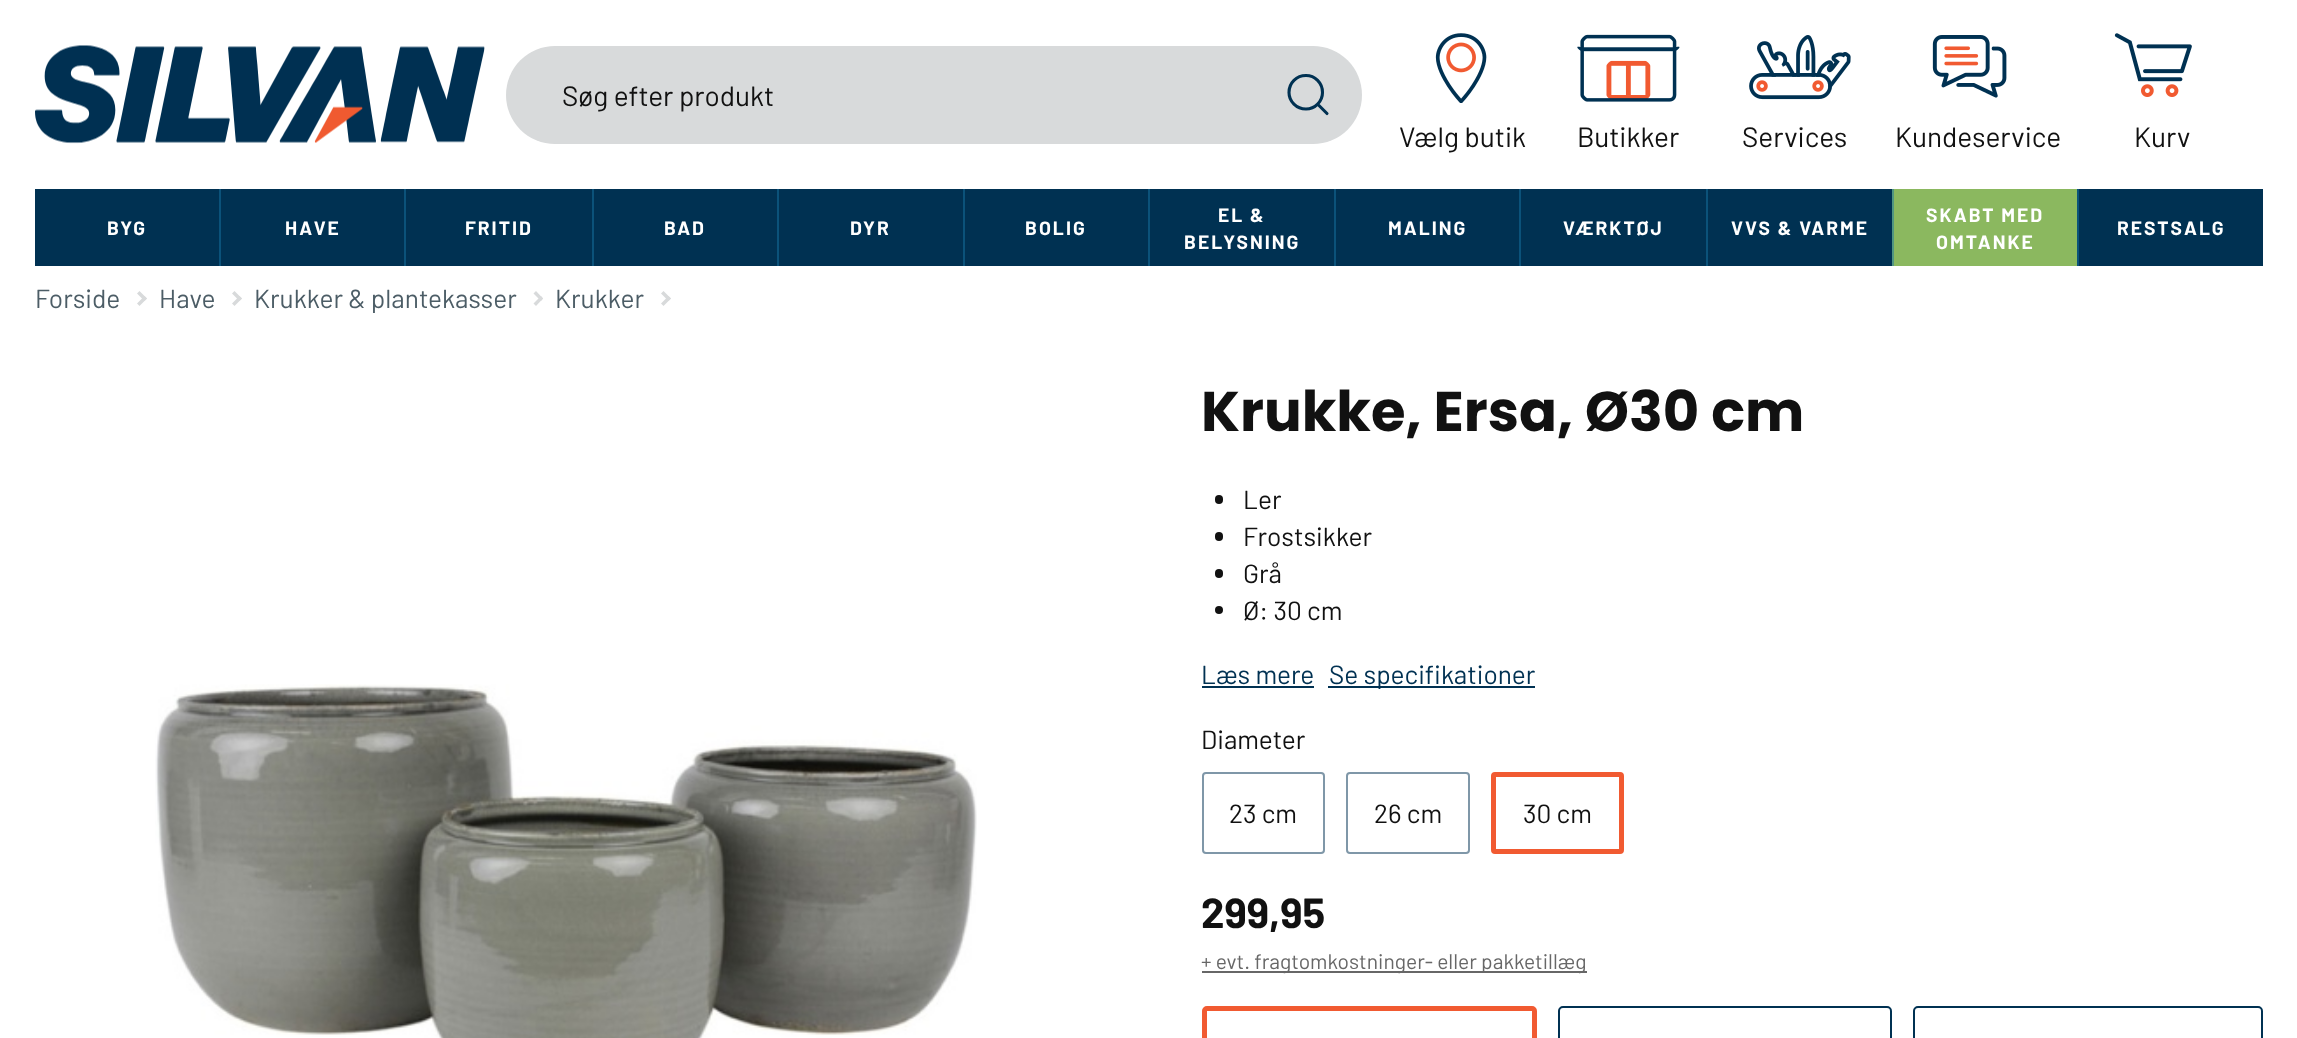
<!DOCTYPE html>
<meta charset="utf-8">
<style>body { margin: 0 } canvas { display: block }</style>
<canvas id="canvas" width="2297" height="1038"></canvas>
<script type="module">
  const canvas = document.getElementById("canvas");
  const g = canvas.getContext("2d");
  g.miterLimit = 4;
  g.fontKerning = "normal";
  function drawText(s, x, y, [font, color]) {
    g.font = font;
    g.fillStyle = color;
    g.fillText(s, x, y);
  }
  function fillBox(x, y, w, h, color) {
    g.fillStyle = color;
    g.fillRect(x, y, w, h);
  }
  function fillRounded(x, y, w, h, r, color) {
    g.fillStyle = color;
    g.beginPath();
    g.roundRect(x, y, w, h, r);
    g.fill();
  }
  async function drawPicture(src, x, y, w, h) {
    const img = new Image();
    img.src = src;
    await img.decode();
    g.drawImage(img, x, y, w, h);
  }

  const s1 = ["28px Barlow", "#111111"];
  const s2 = ["bold 19.25px Barlow", "#FFFFFF"];
  const s3 = ["26.25px Barlow", "#4C5D66"];
  const s4 = ["bold 56px Poppins", "#111111"];
  const s5 = ["26.25px Barlow", "#111111"];
  const s6 = ["26.25px Barlow", "#003152"];
  const s7 = ["bold 42px Barlow", "#111111"];
  const s8 = ["21px Barlow", "#676767"];

  fillBox(0, 0, 2297, 1038, "#FFFFFF");
  await drawPicture("pic1.png", 35, 45, 450, 99);
  fillRounded(506, 46, 856, 98, 49, "#D8DADB");
  drawText("Søg efter produkt", 562, 106, s1);
  g.beginPath();
  g.moveTo(1318.5, 105);
  g.lineTo(1327, 113.5);
  g.moveTo(1289, 92.5);
  g.bezierCurveTo(1289, 101.5, 1296.5, 109, 1306, 109);
  g.bezierCurveTo(1315, 109, 1322.5, 101.5, 1322.5, 92.5);
  g.bezierCurveTo(1322.5, 83, 1315, 75.5, 1306, 75.5);
  g.bezierCurveTo(1296.5, 75.5, 1289, 83, 1289, 92.5);
  g.strokeStyle = "#003152";
  g.lineWidth = 3.1;
  g.lineCap = "round";
  g.lineJoin = "round";
  g.stroke();
  await drawPicture("pic2.png", 1435, 33, 52, 70);
  drawText("Vælg butik", 1399, 147, s1);
  await drawPicture("pic3.png", 1577, 34, 103, 68);
  drawText("Butikker", 1577, 147, s1);
  await drawPicture("pic4.png", 1749, 35, 102, 65);
  drawText("Services", 1742, 147, s1);
  await drawPicture("pic5.png", 1932, 35, 75, 63);
  drawText("Kundeservice", 1895, 147, s1);
  await drawPicture("pic6.png", 2114, 33, 78, 64);
  drawText("Kurv", 2134, 147, s1);
  fillBox(35, 189, 184, 77, "#003152");
  g.letterSpacing = "2px";
  drawText("BYG", 107, 235, s2);
  fillBox(221, 189, 183, 77, "#003152");
  fillBox(219, 189, 2, 77, "#0B527A");
  drawText("HAVE", 285, 235, s2);
  fillBox(406, 189, 186, 77, "#003152");
  fillBox(404, 189, 2, 77, "#0B527A");
  drawText("FRITID", 465, 235, s2);
  fillBox(594, 189, 183, 77, "#003152");
  fillBox(592, 189, 2, 77, "#0B527A");
  drawText("BAD", 664, 235, s2);
  fillBox(779, 189, 184, 77, "#003152");
  fillBox(777, 189, 2, 77, "#0B527A");
  drawText("DYR", 850, 235, s2);
  fillBox(965, 189, 183, 77, "#003152");
  fillBox(963, 189, 2, 77, "#0B527A");
  drawText("BOLIG", 1025, 235, s2);
  fillBox(1150, 189, 184, 77, "#003152");
  fillBox(1148, 189, 2, 77, "#0B527A");
  drawText("EL &", 1218, 222, s2);
  drawText("BELYSNING", 1184, 249, s2);
  fillBox(1336, 189, 183, 77, "#003152");
  fillBox(1334, 189, 2, 77, "#0B527A");
  drawText("MALING", 1388, 235, s2);
  fillBox(1521, 189, 185, 77, "#003152");
  fillBox(1519, 189, 2, 77, "#0B527A");
  drawText("VÆRKTØJ", 1563, 235, s2);
  fillBox(1708, 189, 184, 77, "#003152");
  fillBox(1706, 189, 2, 77, "#0B527A");
  drawText("VVS & VARME", 1731, 235, s2);
  fillBox(1894, 189, 183, 77, "#8BB85F");
  fillBox(1892, 189, 2, 77, "#519680");
  drawText("SKABT MED", 1926, 222, s2);
  drawText("OMTANKE", 1936, 249, s2);
  fillBox(2079, 189, 184, 77, "#003152");
  fillBox(2077, 189, 2, 77, "#0B527A");
  drawText("RESTSALG", 2117, 235, s2);
  g.letterSpacing = "0px";
  drawText("Forside", 35, 308, s3);
  g.fillStyle = "#D8DADB";
  g.beginPath();
  g.moveTo(144.5, 301);
  g.lineTo(137, 293.5);
  g.lineTo(139.5, 291);
  g.lineTo(147, 298.5);
  g.closePath();
  g.fill();
  g.beginPath();
  g.moveTo(139.5, 306);
  g.lineTo(137, 303.5);
  g.lineTo(144.5, 296);
  g.lineTo(147, 298.5);
  g.closePath();
  g.fill();
  drawText("Have", 159, 308, s3);
  g.fillStyle = "#D8DADB";
  g.beginPath();
  g.moveTo(239.5, 301);
  g.lineTo(232, 293.5);
  g.lineTo(234.5, 291);
  g.lineTo(242, 298.5);
  g.closePath();
  g.fill();
  g.beginPath();
  g.moveTo(234.5, 306);
  g.lineTo(232, 303.5);
  g.lineTo(239.5, 296);
  g.lineTo(242, 298.5);
  g.closePath();
  g.fill();
  drawText("Krukker & plantekasser", 254, 308, s3);
  g.fillStyle = "#D8DADB";
  g.beginPath();
  g.moveTo(541, 301);
  g.lineTo(533.5, 293.5);
  g.lineTo(536, 291);
  g.lineTo(543, 298.5);
  g.closePath();
  g.fill();
  g.beginPath();
  g.moveTo(536, 306);
  g.lineTo(533.5, 303.5);
  g.lineTo(541, 296);
  g.lineTo(543, 298.5);
  g.closePath();
  g.fill();
  drawText("Krukker", 555, 308, s3);
  g.fillStyle = "#D8DADB";
  g.beginPath();
  g.moveTo(668.5, 301);
  g.lineTo(661, 293.5);
  g.lineTo(663.5, 291);
  g.lineTo(671, 298.5);
  g.closePath();
  g.fill();
  g.beginPath();
  g.moveTo(663.5, 306);
  g.lineTo(661, 303.5);
  g.lineTo(668.5, 296);
  g.lineTo(671, 298.5);
  g.closePath();
  g.fill();
  await drawPicture("pic7.png", 155, 684, 822, 354);
  drawText("Krukke, Ersa, Ø30 cm", 1201, 431, s4);
  fillRounded(1215, 495, 8, 9, 4, "#111111");
  drawText("Ler", 1243, 509, s5);
  fillRounded(1215, 532, 8, 9, 4, "#111111");
  drawText("Frostsikker", 1243, 546, s5);
  fillRounded(1215, 569, 8, 9, 4, "#111111");
  drawText("Grå", 1243, 583, s5);
  g.beginPath();
  g.arc(1219, 610, 4, 0, Math.PI * 2);
  g.fill();
  drawText("Ø: 30 cm", 1243, 620, s5);
  drawText("Læs mere", 1201, 684, s6);
  fillBox(1202, 686, 112, 2, "#003152");
  fillBox(1328, 686, 207, 2, "#003152");
  drawText("Se specifikationer", 1329, 684, s6);
  drawText("Diameter", 1201, 749, s5);
  g.beginPath();
  g.roundRect(1203, 773, 121, 80, 3);
  g.strokeStyle = "#7F97A8";
  g.lineWidth = 2;
  g.lineJoin = "miter";
  g.stroke();
  drawText("23 cm", 1229, 823, s5);
  g.beginPath();
  g.roundRect(1347, 773, 122, 80, 3);
  g.stroke();
  drawText("26 cm", 1374, 823, s5);
  g.beginPath();
  g.roundRect(1493.5, 774.5, 128, 77, 1.5);
  g.strokeStyle = "#F15A31";
  g.lineWidth = 5;
  g.stroke();
  drawText("30 cm", 1523, 823, s5);
  drawText("299,95", 1201, 928, s7);
  fillBox(1202, 971, 385, 2, "#676767");
  drawText("+ evt. fragtomkostninger- eller pakketillæg", 1201, 969, s8);
  g.beginPath();
  g.roundRect(1204.5, 1008.5, 330, 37, 2.5);
  g.stroke();
  g.beginPath();
  g.roundRect(1559, 1007, 332, 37, 4);
  g.strokeStyle = "#003152";
  g.lineWidth = 2;
  g.stroke();
  g.beginPath();
  g.roundRect(1914, 1007, 348, 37, 4);
  g.stroke();
</script>
